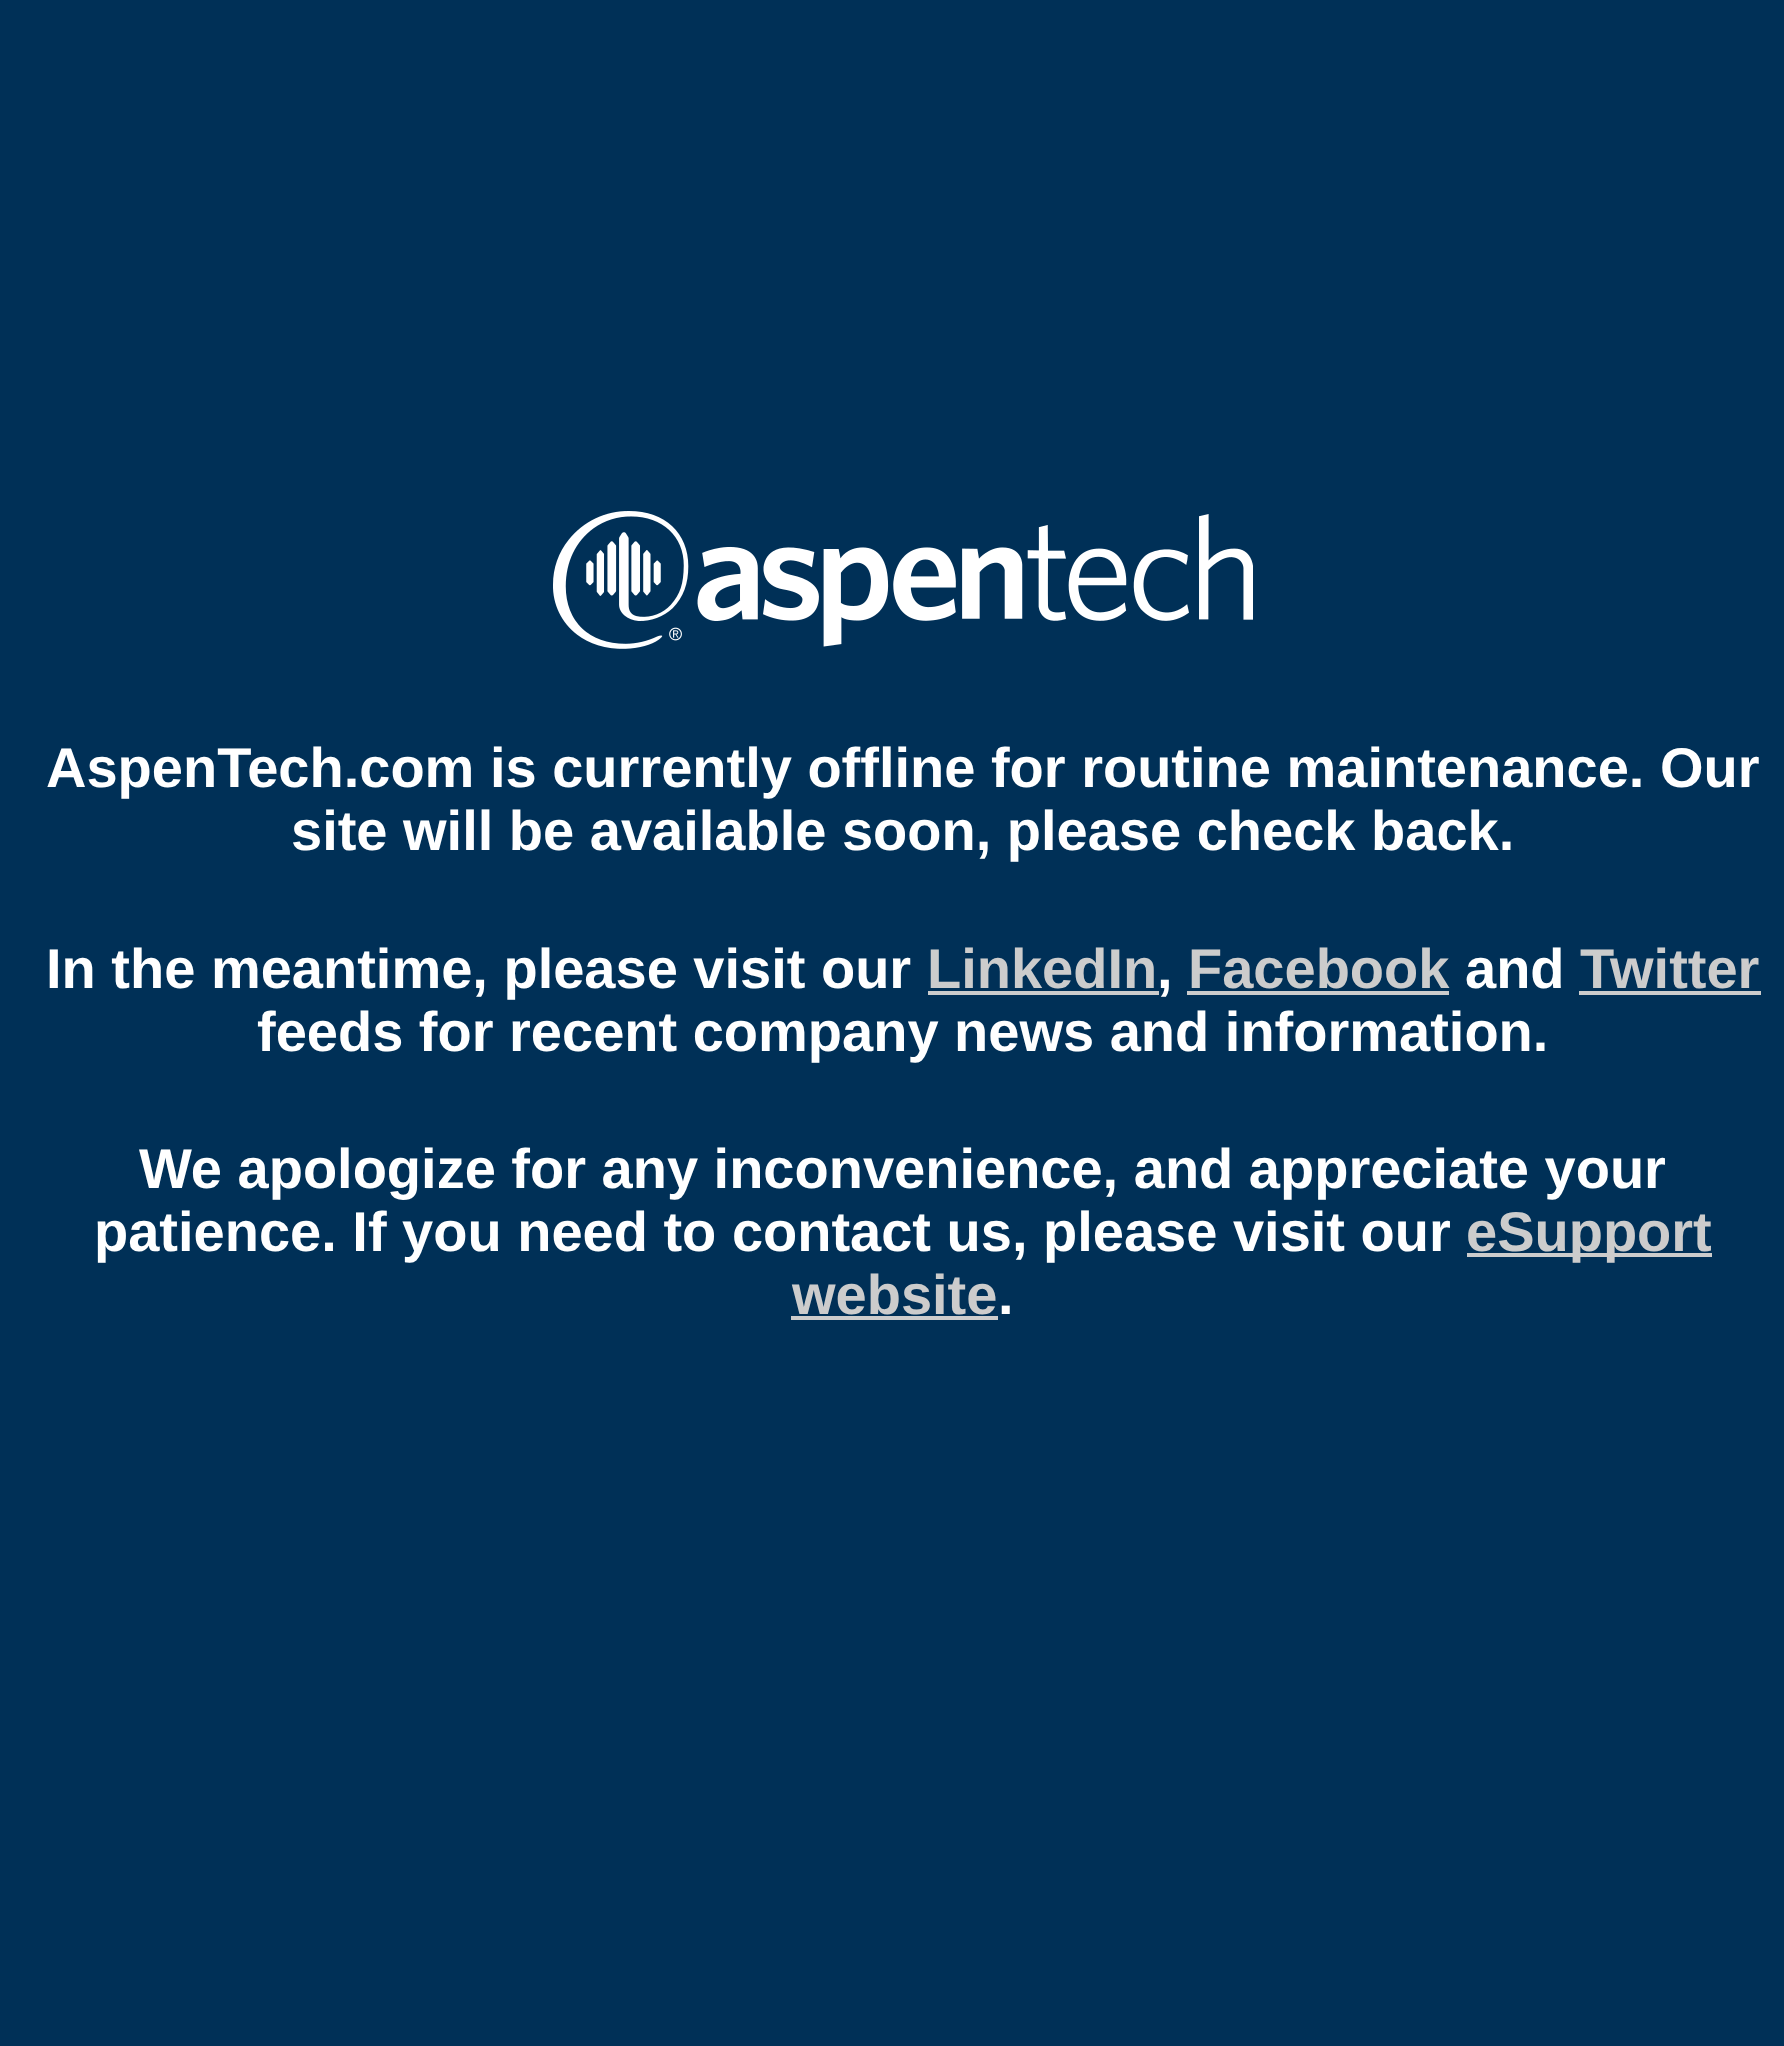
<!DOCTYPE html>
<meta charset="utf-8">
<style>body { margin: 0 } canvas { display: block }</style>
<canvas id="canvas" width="1784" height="2046"></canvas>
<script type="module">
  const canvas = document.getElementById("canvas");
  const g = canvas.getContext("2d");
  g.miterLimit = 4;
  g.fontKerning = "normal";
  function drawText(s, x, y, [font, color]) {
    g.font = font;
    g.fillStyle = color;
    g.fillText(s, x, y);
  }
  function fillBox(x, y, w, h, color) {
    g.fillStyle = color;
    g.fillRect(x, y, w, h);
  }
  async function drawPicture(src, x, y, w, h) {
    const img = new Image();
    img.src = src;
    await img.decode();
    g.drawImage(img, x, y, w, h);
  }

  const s1 = ["bold 56px Liberation Sans", "#FFFFFF"];
  const s2 = ["bold 56px Liberation Sans", "#CCCCCC"];

  fillBox(0, 0, 1784, 2046, "#003057");
  await drawPicture("pic1.png", 553, 511, 700, 138);
  drawText("AspenTech.com is currently offline for routine maintenance. Our", 46, 787, s1);
  drawText("site will be available soon, please check back.", 291, 850, s1);
  drawText("In the meantime, please visit our", 46, 988, s1);
  drawText("LinkedIn", 927, 988, s2);
  fillBox(928, 991, 231, 4, "#CCCCCC");
  drawText(",", 1157, 988, s1);
  drawText("Facebook", 1188, 988, s2);
  fillBox(1187, 991, 262, 4, "#CCCCCC");
  drawText("and", 1465, 988, s1);
  drawText("Twitter", 1580, 988, s2);
  fillBox(1579, 991, 182, 4, "#CCCCCC");
  drawText("feeds for recent company news and information.", 257, 1051, s1);
  drawText("We apologize for any inconvenience, and appreciate your", 139, 1188, s1);
  drawText("patience. If you need to contact us, please visit our", 94, 1251, s1);
  fillBox(1467, 1253, 245, 4, "#CCCCCC");
  drawText("eSupport", 1466, 1251, s2);
  drawText("website", 792, 1314, s2);
  fillBox(791, 1316, 207, 4, "#CCCCCC");
  drawText(".", 998, 1314, s1);
</script>
